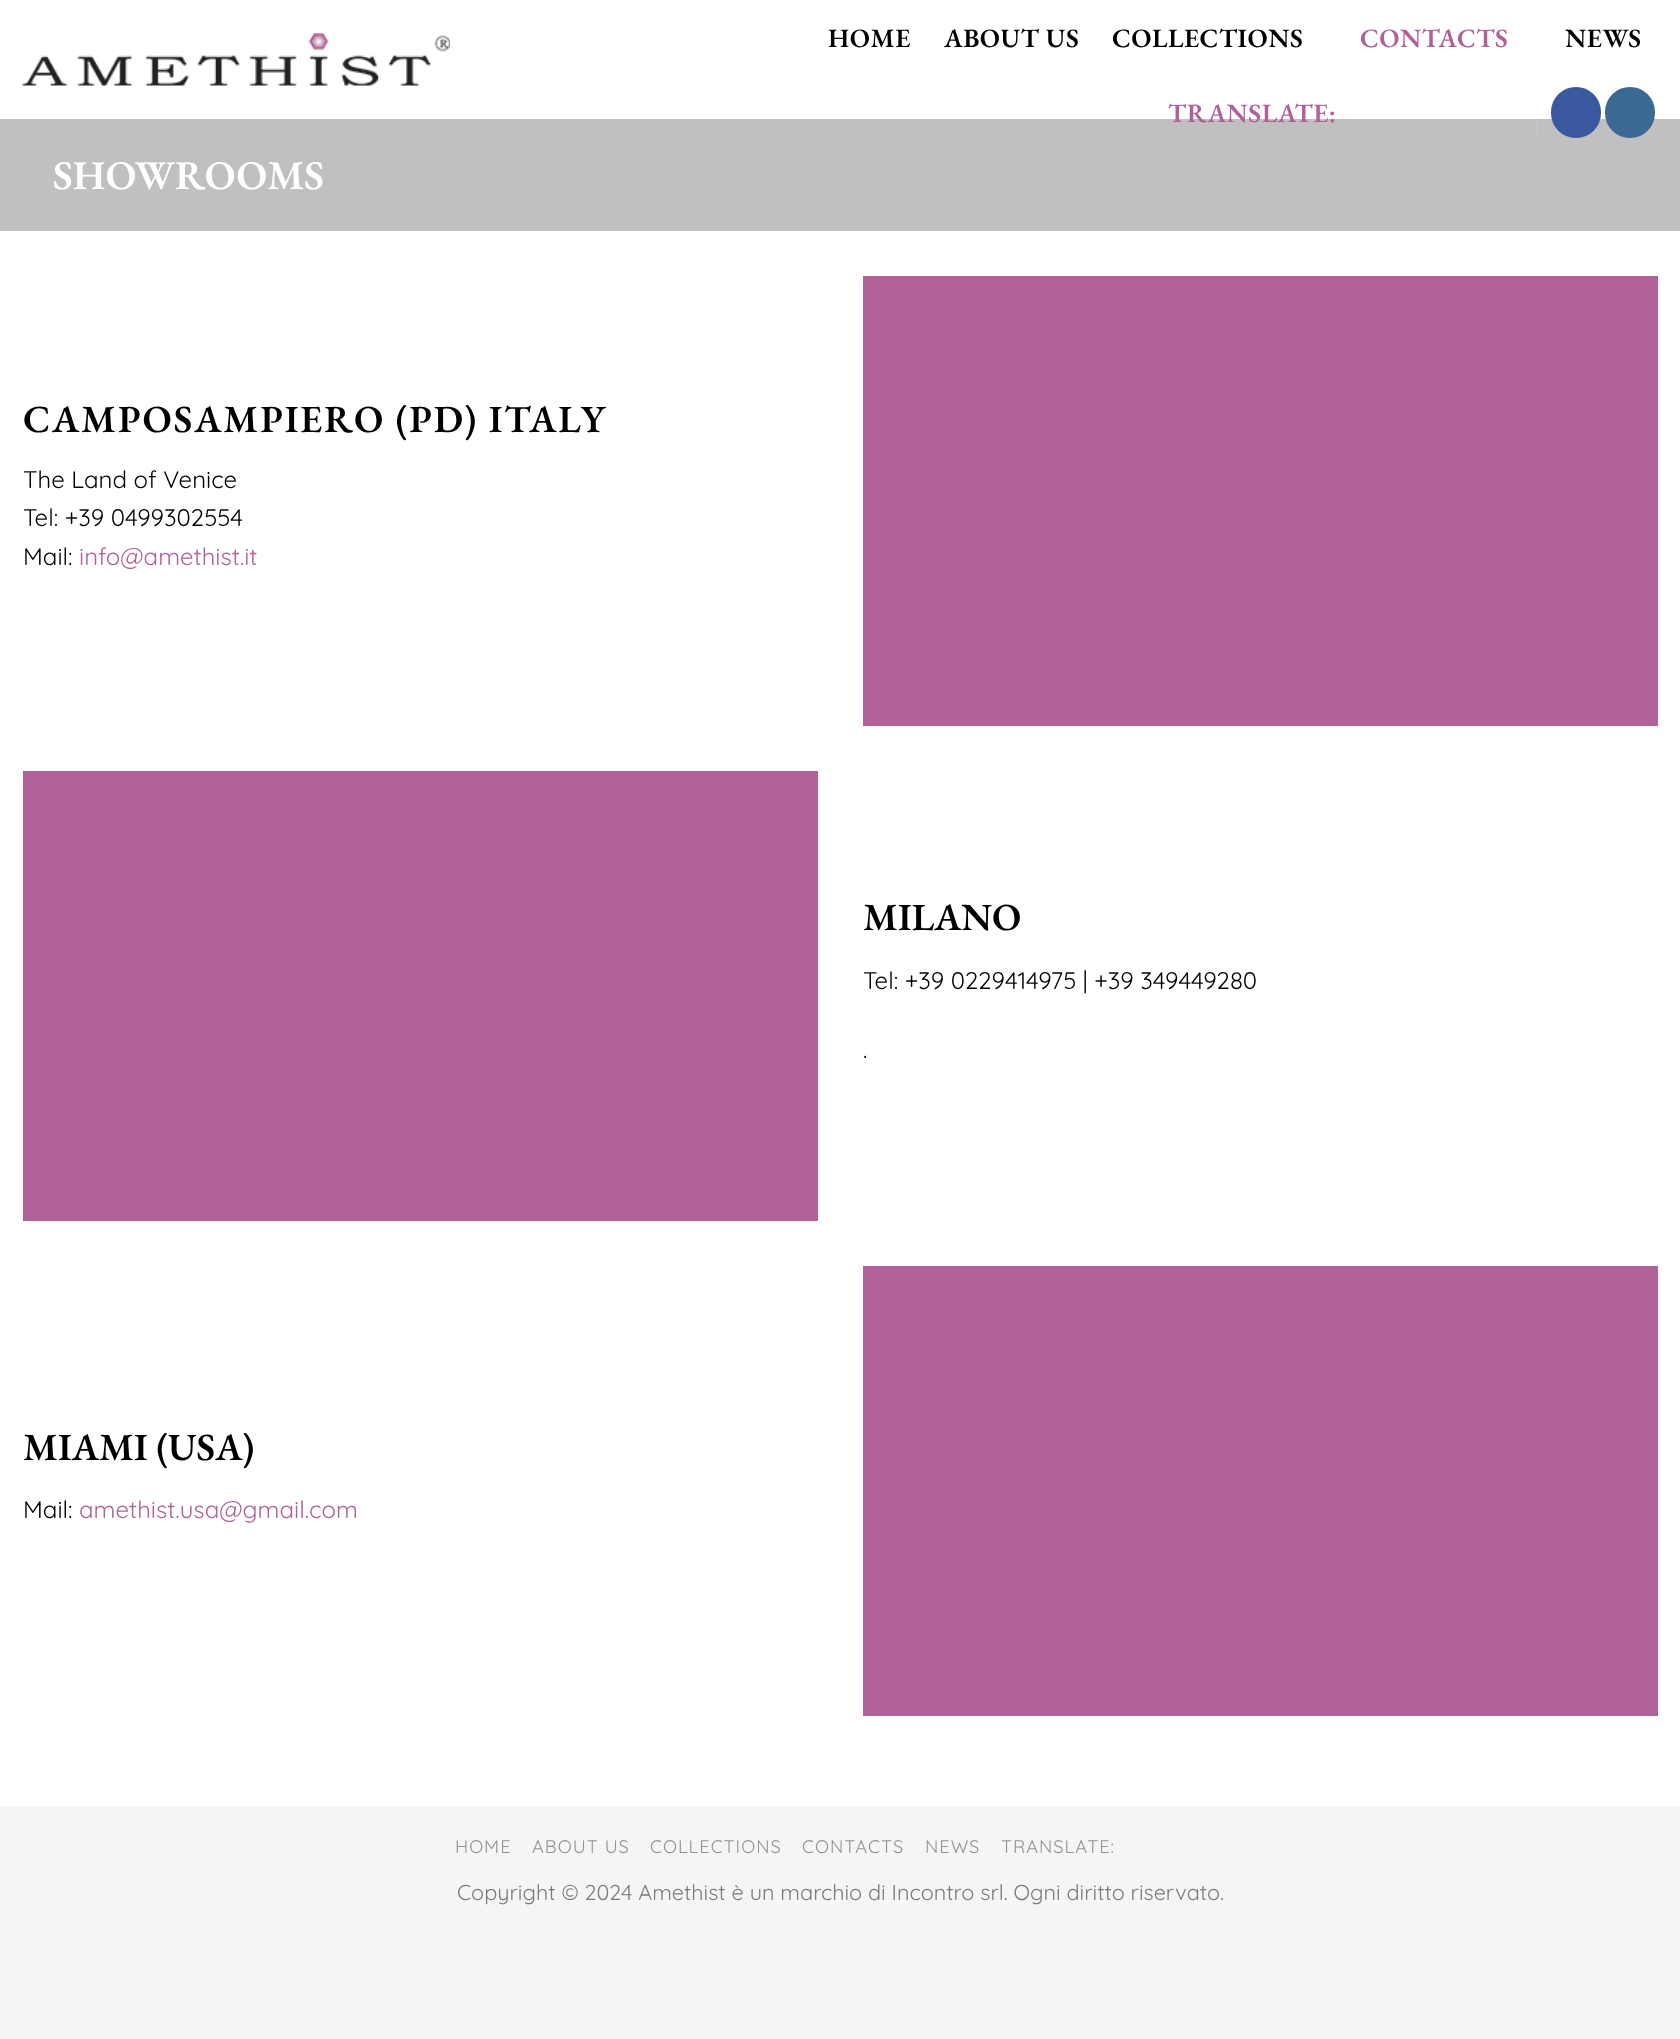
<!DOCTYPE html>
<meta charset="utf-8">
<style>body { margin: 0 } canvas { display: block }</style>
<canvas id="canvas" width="1680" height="2039"></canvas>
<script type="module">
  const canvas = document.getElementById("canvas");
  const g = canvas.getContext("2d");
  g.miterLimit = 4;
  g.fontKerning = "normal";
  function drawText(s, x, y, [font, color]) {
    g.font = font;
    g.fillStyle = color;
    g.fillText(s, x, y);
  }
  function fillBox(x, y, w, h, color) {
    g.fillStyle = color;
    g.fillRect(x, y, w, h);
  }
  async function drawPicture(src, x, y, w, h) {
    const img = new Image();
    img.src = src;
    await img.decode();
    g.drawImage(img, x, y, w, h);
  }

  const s1 = ["600 26.5px EB Garamond", "#000000"];
  const s2 = ["600 26.5px EB Garamond", "#B06197"];
  const s3 = ["600 40.75px EB Garamond", "#FFFFFF"];
  const s4 = ["600 38.4px EB Garamond", "#000000"];
  const s5 = ["24px Quicksand", "#000000"];
  const s6 = ["24px Quicksand", "#B06197"];
  const s7 = ["18.25px Quicksand", "#939393"];
  const s8 = ["21.6px Quicksand", "#7B7B7B"];

  fillBox(0, 0, 1680, 2039, "#F5F5F5");
  fillBox(0, 0, 1680, 1806, "#FFFFFF");
  await drawPicture("pic1.png", 22, 33, 428, 53);
  g.letterSpacing = "0.5px";
  drawText("HOME", 828, 47, s1);
  drawText("ABOUT US", 944, 47, s1);
  drawText("COLLECTIONS", 1112, 47, s1);
  drawText("CONTACTS", 1360, 47, s2);
  drawText("NEWS", 1565, 47, s1);
  fillBox(0, 119, 1680, 112, "#C0C0C0");
  drawText("TRANSLATE:", 1168, 122, s2);
  g.fillStyle = "#3A589D";
  g.beginPath();
  g.roundRect(1552, 88, 48, 49, 24);
  g.fill();
  g.strokeStyle = "#3A589D";
  g.lineWidth = 2;
  g.stroke();
  g.fillStyle = "#3B6994";
  g.beginPath();
  g.roundRect(1606, 88, 48, 49, 24);
  g.fill();
  g.strokeStyle = "#3B6994";
  g.stroke();
  fillBox(1536, 119, 2, 16, "#C6C6C6");
  g.letterSpacing = "0px";
  drawText("SHOWROOMS", 53, 189, s3);
  g.letterSpacing = "1.9px";
  drawText("CAMPOSAMPIERO (PD) ITALY", 23, 432, s4);
  g.letterSpacing = "0px";
  drawText("The Land of Venice", 23, 488, s5);
  drawText("Tel: +39 0499302554", 23, 526, s5);
  drawText("Mail:", 23, 565, s5);
  drawText("info@amethist.it", 79, 565, s6);
  fillBox(863, 276, 795, 450, "#B06197");
  fillBox(23, 771, 795, 450, "#B06197");
  drawText("MILANO", 863, 930, s4);
  drawText("Tel: +39 0229414975 | +39 349449280", 863, 989, s5);
  drawText(".", 863, 1058, s5);
  drawText("MIAMI (USA)", 23, 1460, s4);
  drawText("Mail:", 23, 1518, s5);
  drawText("amethist.usa@gmail.com", 79, 1518, s6);
  fillBox(863, 1266, 795, 450, "#B06197");
  g.letterSpacing = "1px";
  drawText("HOME", 455, 1853, s7);
  drawText("ABOUT US", 532, 1853, s7);
  drawText("COLLECTIONS", 650, 1853, s7);
  drawText("CONTACTS", 802, 1853, s7);
  drawText("NEWS", 925, 1853, s7);
  drawText("TRANSLATE:", 1001, 1853, s7);
  g.letterSpacing = "0px";
  drawText("Copyright © 2024 Amethist è un marchio di Incontro srl. Ogni diritto riservato.", 457, 1900, s8);
</script>
